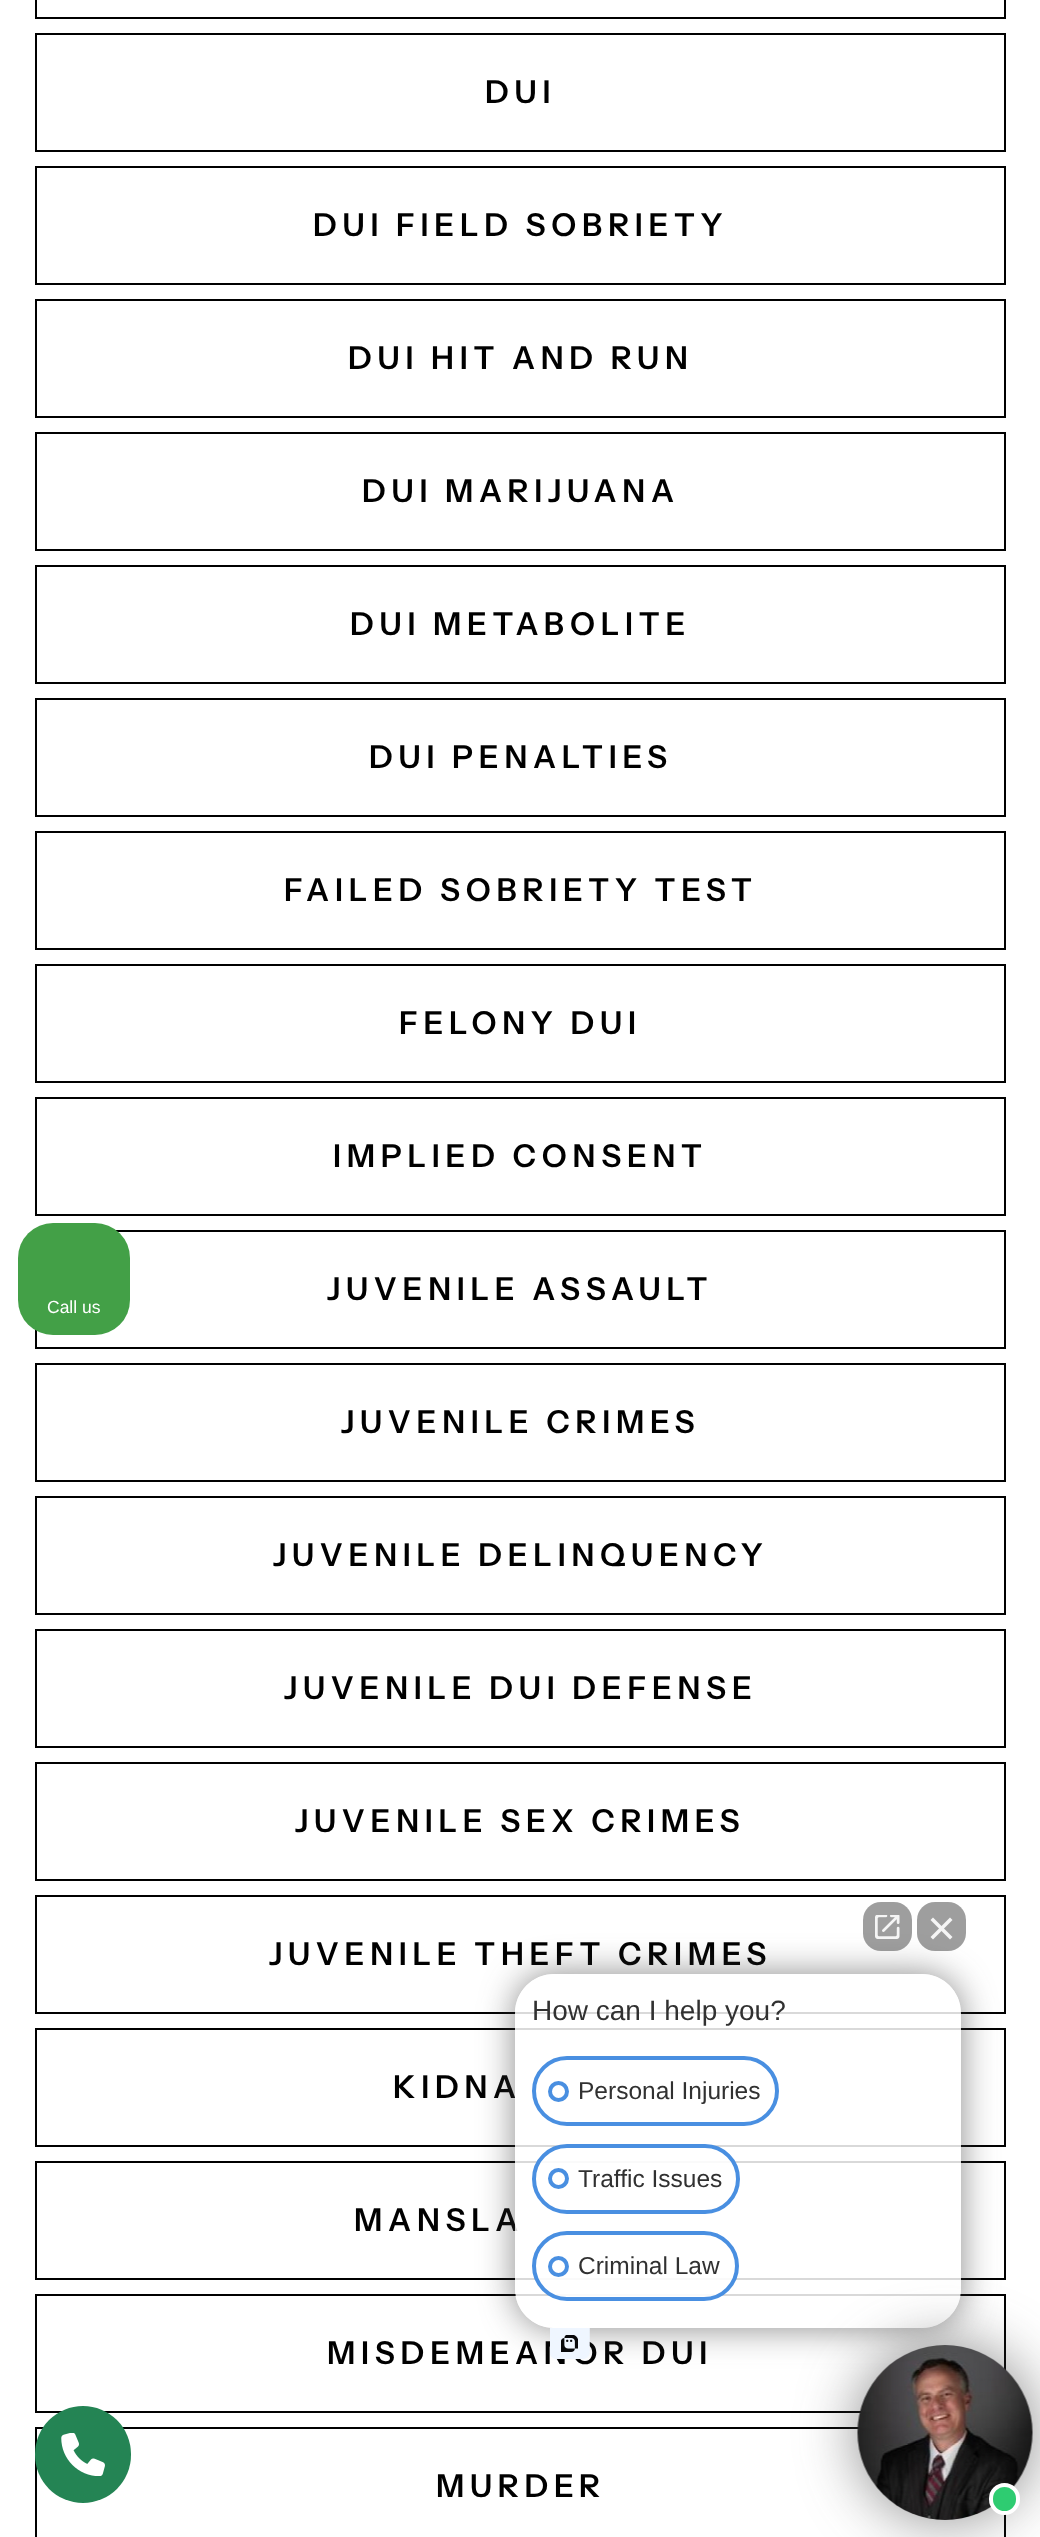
<!DOCTYPE html>
<meta charset="utf-8">
<style>body { margin: 0 } canvas { display: block }</style>
<canvas id="canvas" width="1040" height="2537"></canvas>
<script type="module">
  const canvas = document.getElementById("canvas");
  const g = canvas.getContext("2d");
  g.miterLimit = 4;
  g.fontKerning = "normal";
  function drawText(s, x, y, [font, color]) {
    g.font = font;
    g.fillStyle = color;
    g.fillText(s, x, y);
  }
  function fillBox(x, y, w, h, color) {
    g.fillStyle = color;
    g.fillRect(x, y, w, h);
  }
  function fillRounded(x, y, w, h, r, color) {
    g.fillStyle = color;
    g.beginPath();
    g.roundRect(x, y, w, h, r);
    g.fill();
  }
  async function drawPicture(src, x, y, w, h) {
    const img = new Image();
    img.src = src;
    await img.decode();
    g.drawImage(img, x, y, w, h);
  }

  const s1 = ["17.5px Liberation Sans", "#FFFFFF"];
  const s2 = ["600 31.5px Instrument Sans", "#000000"];
  const s3 = ["28px Liberation Sans", "#313131"];
  const s4 = ["24.5px Liberation Sans", "#313131"];

  fillBox(0, 0, 1040, 2537, "#FFFFFF");
  g.strokeStyle = "#000000";
  g.lineWidth = 2;
  g.strokeRect(36, 1231, 969, 117);
  fillRounded(18, 1223, 112, 112, 35, "#43A047");
  drawText("Call us", 47, 1313, s1);
  g.strokeRect(36, -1, 969, 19);
  g.strokeRect(36, 34, 969, 117);
  g.letterSpacing = "5.75px";
  drawText("DUI", 485, 103, s2);
  g.strokeRect(36, 167, 969, 117);
  drawText("DUI FIELD SOBRIETY", 313, 236, s2);
  g.strokeRect(36, 300, 969, 117);
  drawText("DUI HIT AND RUN", 348, 369, s2);
  g.strokeRect(36, 433, 969, 117);
  drawText("DUI MARIJUANA", 362, 502, s2);
  g.strokeRect(36, 566, 969, 117);
  drawText("DUI METABOLITE", 350, 635, s2);
  g.strokeRect(36, 699, 969, 117);
  drawText("DUI PENALTIES", 369, 768, s2);
  g.strokeRect(36, 832, 969, 117);
  drawText("FAILED SOBRIETY TEST", 284, 901, s2);
  g.strokeRect(36, 965, 969, 117);
  drawText("FELONY DUI", 399, 1034, s2);
  g.strokeRect(36, 1098, 969, 117);
  drawText("IMPLIED CONSENT", 333, 1167, s2);
  drawText("JUVENILE ASSAULT", 327, 1300, s2);
  g.strokeRect(36, 1364, 969, 117);
  drawText("JUVENILE CRIMES", 341, 1433, s2);
  g.strokeRect(36, 1497, 969, 117);
  drawText("JUVENILE DELINQUENCY", 273, 1566, s2);
  g.strokeRect(36, 1630, 969, 117);
  drawText("JUVENILE DUI DEFENSE", 284, 1699, s2);
  g.strokeRect(36, 1763, 969, 117);
  drawText("JUVENILE SEX CRIMES", 295, 1832, s2);
  g.strokeRect(36, 1896, 969, 117);
  drawText("JUVENILE THEFT CRIMES", 269, 1965, s2);
  g.strokeRect(36, 2029, 969, 117);
  drawText("KIDNA", 393, 2098, s2);
  g.strokeRect(36, 2162, 969, 117);
  drawText("MANSLA", 354, 2231, s2);
  g.strokeRect(36, 2295, 969, 117);
  drawText("MISDEMEANOR DUI", 327, 2364, s2);
  g.strokeRect(36, 2428, 969, 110);
  drawText("MURDER", 436, 2497, s2);
  g.save();
  g.beginPath();
  g.moveTo(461, 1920);
  g.lineTo(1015, 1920);
  g.lineTo(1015, 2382);
  g.lineTo(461, 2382);
  g.closePath();
  g.moveTo(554, 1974);
  g.lineTo(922, 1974);
  g.bezierCurveTo(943.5, 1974, 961, 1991.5, 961, 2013);
  g.lineTo(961, 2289);
  g.bezierCurveTo(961, 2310.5, 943.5, 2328, 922, 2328);
  g.lineTo(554, 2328);
  g.bezierCurveTo(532.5, 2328, 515, 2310.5, 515, 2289);
  g.lineTo(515, 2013);
  g.bezierCurveTo(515, 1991.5, 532.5, 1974, 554, 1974);
  g.closePath();
  g.clip("evenodd");
  g.fillStyle = "rgba(60, 60, 60, 0.6)";
  g.filter = "blur(17.5px)";
  g.beginPath();
  g.roundRect(515, 1974, 446, 354, 39);
  g.fill();
  g.filter = "none";
  g.restore();
  fillRounded(515, 1974, 446, 354, 39, "rgba(255, 255, 255, 0.85)");
  fillRounded(863, 1902, 49, 49, 18, "rgba(39, 39, 39, 0.45)");
  await drawPicture("pic1.png", 875, 1915, 25, 24);
  fillRounded(917, 1902, 49, 49, 18, "rgba(39, 39, 39, 0.45)");
  g.fillStyle = "#F5F5F5";
  g.beginPath();
  g.moveTo(930.5, 1920);
  g.lineTo(933, 1917.5);
  g.lineTo(952.5, 1937);
  g.lineTo(950, 1939.5);
  g.closePath();
  g.fill();
  g.beginPath();
  g.moveTo(950, 1917.5);
  g.lineTo(952.5, 1920);
  g.lineTo(933, 1939.5);
  g.lineTo(930.5, 1937);
  g.closePath();
  g.fill();
  g.letterSpacing = "0px";
  drawText("How can I help you?", 532, 2020, s3);
  g.beginPath();
  g.roundRect(534, 2058, 243, 66, 33);
  g.strokeStyle = "#498FE1";
  g.lineWidth = 4;
  g.stroke();
  g.beginPath();
  g.arc(558.5, 2091.5, 8.5, 0, Math.PI * 2);
  g.stroke();
  drawText("Personal Injuries", 578, 2099, s4);
  g.fillStyle = "rgba(255, 255, 255, 0.85)";
  g.beginPath();
  g.roundRect(534, 2146, 204, 66, 33);
  g.fill();
  g.stroke();
  g.beginPath();
  g.arc(558.5, 2178.5, 8.5, 0, Math.PI * 2);
  g.stroke();
  drawText("Traffic Issues", 578, 2187, s4);
  g.fillStyle = "rgba(255, 255, 255, 0.85)";
  g.beginPath();
  g.roundRect(534, 2233, 203, 66, 33);
  g.fill();
  g.stroke();
  g.beginPath();
  g.arc(558.5, 2266.5, 8.5, 0, Math.PI * 2);
  g.stroke();
  drawText("Criminal Law", 578, 2274, s4);
  await drawPicture("pic2.png", 550, 2328, 40, 31);
  g.fillStyle = "rgba(60, 60, 60, 0.6)";
  g.filter = "blur(30.5px)";
  g.beginPath();
  g.roundRect(858, 2345, 175, 175, 87.5);
  g.fill();
  g.filter = "none";
  await drawPicture("pic3.png", 857, 2345, 176, 175);
  g.fillStyle = "#2ECC71";
  g.beginPath();
  g.roundRect(991, 2485, 27, 28, 13.5);
  g.fill();
  g.strokeStyle = "#FFFFFF";
  g.stroke();
  fillRounded(35, 2406, 96, 97, 48, "#248454");
  await drawPicture("pic4.png", 61, 2433, 44, 43);
</script>
